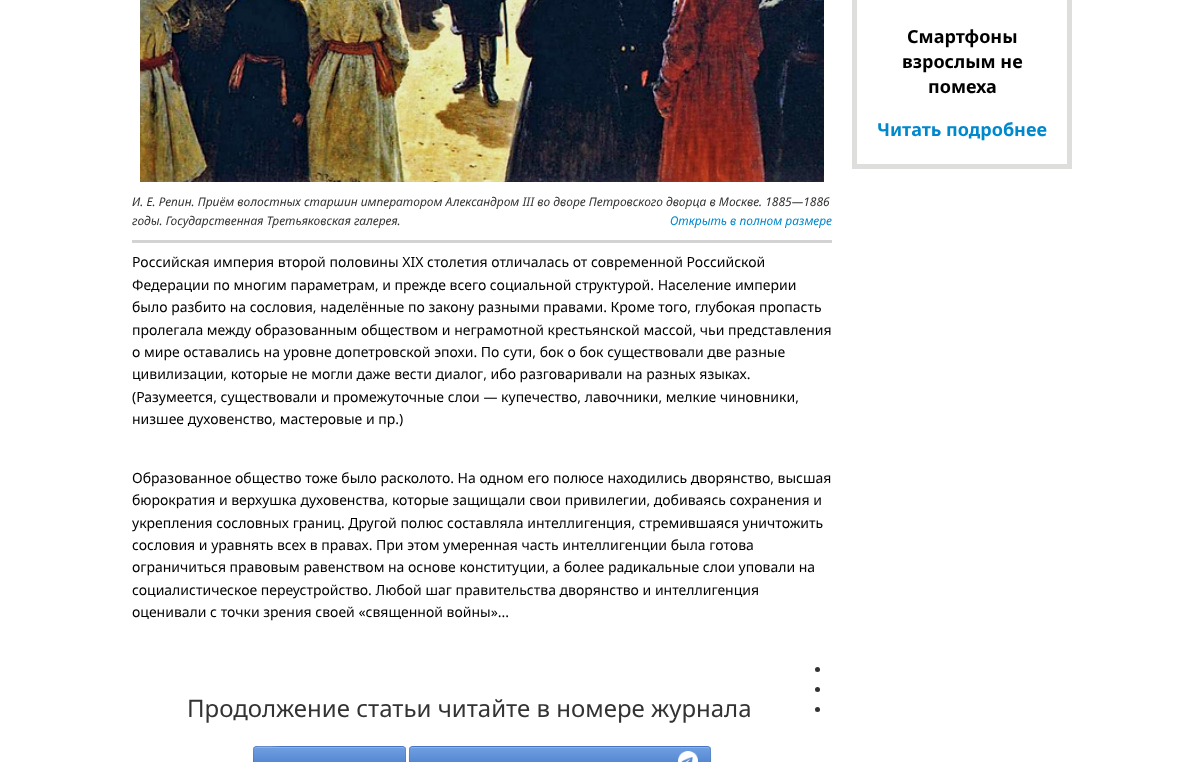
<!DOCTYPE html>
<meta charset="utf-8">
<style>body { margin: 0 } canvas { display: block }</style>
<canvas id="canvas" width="1204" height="762"></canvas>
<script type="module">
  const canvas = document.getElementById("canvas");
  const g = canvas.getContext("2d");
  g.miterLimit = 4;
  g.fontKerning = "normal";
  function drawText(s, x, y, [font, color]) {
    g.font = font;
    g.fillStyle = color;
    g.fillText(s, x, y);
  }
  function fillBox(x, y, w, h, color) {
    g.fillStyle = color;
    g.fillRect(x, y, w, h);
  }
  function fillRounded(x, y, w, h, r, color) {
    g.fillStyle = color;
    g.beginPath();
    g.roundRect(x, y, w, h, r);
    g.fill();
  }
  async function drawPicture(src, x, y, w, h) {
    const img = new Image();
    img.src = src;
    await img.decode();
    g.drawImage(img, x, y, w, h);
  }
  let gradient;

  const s1 = ["bold 18px Noto Sans", "#000000"];
  const s2 = ["bold 18px Noto Sans", "#0088CC"];
  const s3 = ["italic 12px Noto Sans", "#333333"];
  const s4 = ["italic 12px Noto Sans", "#0088CC"];
  const s5 = ["14px Noto Sans", "#000000"];
  const s6 = ["24px Noto Sans", "#333333"];

  fillBox(0, 0, 1204, 762, "#FFFFFF");
  g.strokeStyle = "#DEDEDD";
  g.lineWidth = 5;
  g.strokeRect(854.5, -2.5, 215, 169);
  drawText("Смартфоны", 907, 43, s1);
  drawText("взрослым не", 902, 68, s1);
  drawText("помеха", 928, 93, s1);
  drawText("Читать подробнее", 877, 136, s2);
  fillBox(132, 240, 700, 3, "#D3D3D3");
  await drawPicture("pic1.png", 140, 0, 684, 182);
  drawText("И. Е. Репин. Приём волостных старшин императором Александром III во дворе Петровского дворца в Москве. 1885—1886", 132, 206, s3);
  drawText("годы. Государственная Третьяковская галерея.", 132, 225, s3);
  drawText("Открыть в полном размере", 670, 225, s4);
  drawText("Российская империя второй половины XIX столетия отличалась от современной Российской", 132, 267, s5);
  drawText("Федерации по многим параметрам, и прежде всего социальной структурой. Население империи", 132, 290, s5);
  drawText("было разбито на сословия, наделённые по закону разными правами. Кроме того, глубокая пропасть", 132, 312, s5);
  drawText("пролегала между образованным обществом и неграмотной крестьянской массой, чьи представления", 132, 335, s5);
  drawText("о мире оставались на уровне допетровской эпохи. По сути, бок о бок существовали две разные", 132, 357, s5);
  drawText("цивилизации, которые не могли даже вести диалог, ибо разговаривали на разных языках.", 132, 379, s5);
  drawText("(Разумеется, существовали и промежуточные слои — купечество, лавочники, мелкие чиновники,", 132, 402, s5);
  drawText("низшее духовенство, мастеровые и пр.)", 132, 424, s5);
  drawText("Образованное общество тоже было расколото. На одном его полюсе находились дворянство, высшая", 132, 483, s5);
  drawText("бюрократия и верхушка духовенства, которые защищали свои привилегии, добиваясь сохранения и", 132, 505, s5);
  drawText("укрепления сословных границ. Другой полюс составляла интеллигенция, стремившаяся уничтожить", 132, 528, s5);
  drawText("сословия и уравнять всех в правах. При этом умеренная часть интеллигенции была готова", 132, 550, s5);
  drawText("ограничиться правовым равенством на основе конституции, а более радикальные слои уповали на", 132, 572, s5);
  drawText("социалистическое переустройство. Любой шаг правительства дворянство и интеллигенция", 132, 595, s5);
  drawText("оценивали с точки зрения своей «священной войны»...", 132, 617, s5);
  drawText("Продолжение статьи читайте в номере журнала", 187, 717, s6);
  fillRounded(253, 746, 153, 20, 4, "#5084D7");
  g.save();
  g.beginPath();
  g.roundRect(253, 746, 153, 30, 4);
  g.clip();
  gradient = g.createLinearGradient(330, 747, 330, 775);
  gradient.addColorStop(0, "#70A0E2");
  gradient.addColorStop(1, "#3F74C4");
  g.fillStyle = gradient;
  g.fillRect(253, 747, 153, 15);
  g.restore();
  g.fillStyle = "rgba(255, 255, 255, 0.2)";
  g.beginPath();
  g.moveTo(257, 748);
  g.lineTo(402, 748);
  g.bezierCurveTo(404, 748, 405, 749, 405, 751);
  g.bezierCurveTo(405, 749, 405, 748, 403, 747);
  g.lineTo(281, 747);
  g.bezierCurveTo(274, 747, 254, 742, 254, 751);
  g.bezierCurveTo(254, 749, 255, 748, 257, 748);
  g.closePath();
  g.fill();
  g.beginPath();
  g.moveTo(254.5, 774.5);
  g.bezierCurveTo(252.5, 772.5, 253.5, 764, 253.5, 761);
  g.lineTo(253.5, 753.5);
  g.bezierCurveTo(253.5, 751, 253, 746.5, 257, 746.5);
  g.lineTo(402, 746.5);
  g.bezierCurveTo(406, 746.5, 405.5, 751, 405.5, 753.5);
  g.lineTo(405.5, 761);
  g.bezierCurveTo(405.5, 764, 406.5, 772.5, 404.5, 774.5);
  g.strokeStyle = "rgba(0, 0, 0, 0.1)";
  g.lineWidth = 1;
  g.stroke();
  fillRounded(409, 746, 302, 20, 4, "#5084D7");
  g.save();
  g.beginPath();
  g.roundRect(409, 746, 302, 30, 4);
  g.clip();
  gradient = g.createLinearGradient(560, 747, 560, 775);
  gradient.addColorStop(0, "#70A0E2");
  gradient.addColorStop(1, "#3F74C4");
  g.fillStyle = gradient;
  g.fillRect(409, 747, 302, 15);
  g.restore();
  g.fillStyle = "#8CB2E7";
  g.beginPath();
  g.moveTo(413, 748);
  g.lineTo(707, 748);
  g.bezierCurveTo(709, 748, 710, 749, 710, 751);
  g.lineTo(709, 748);
  g.lineTo(708, 747);
  g.lineTo(413, 747);
  g.bezierCurveTo(411, 747, 410, 749, 410, 751);
  g.bezierCurveTo(410, 749, 411, 748, 413, 748);
  g.closePath();
  g.fill();
  g.beginPath();
  g.moveTo(410.5, 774.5);
  g.bezierCurveTo(408.5, 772.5, 409, 750, 410, 748);
  g.bezierCurveTo(410.5, 747, 412, 746.5, 413, 746.5);
  g.lineTo(707, 746.5);
  g.bezierCurveTo(708, 746.5, 709.5, 747, 710, 748);
  g.bezierCurveTo(711, 750, 711.5, 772.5, 709.5, 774.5);
  g.stroke();
  await drawPicture("pic2.png", 678, 751, 20, 11);
  g.fillStyle = "#333333";
  g.beginPath();
  g.arc(817.5, 669.5, 2.5, 0, Math.PI * 2);
  g.fill();
  g.beginPath();
  g.arc(817.5, 689.5, 2.5, 0, Math.PI * 2);
  g.fill();
  g.beginPath();
  g.arc(817.5, 709.5, 2.5, 0, Math.PI * 2);
  g.fill();
</script>
